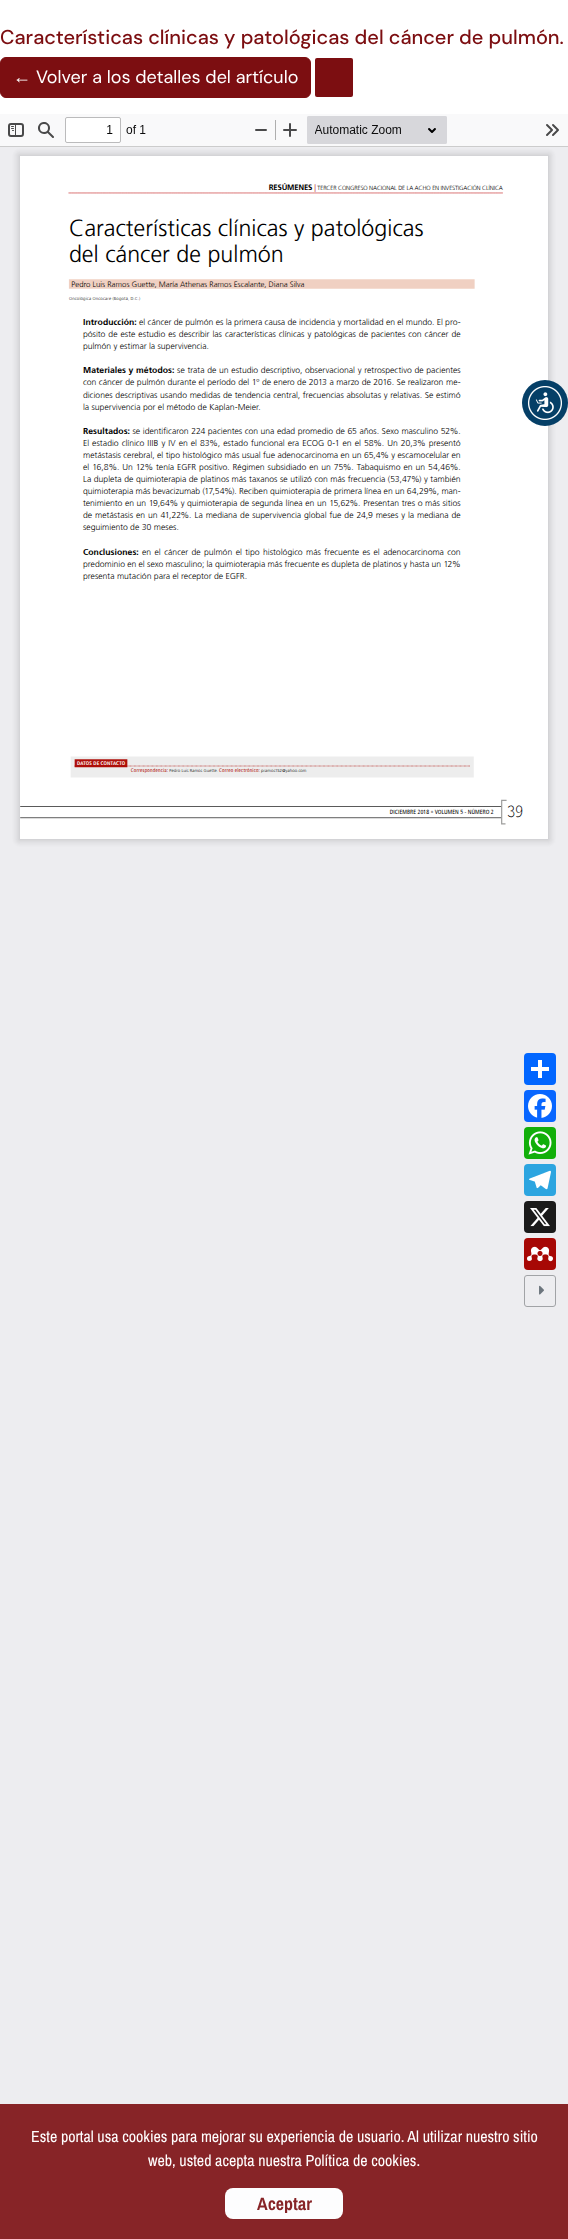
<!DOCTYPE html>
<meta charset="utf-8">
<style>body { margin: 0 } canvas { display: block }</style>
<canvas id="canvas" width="568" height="2239"></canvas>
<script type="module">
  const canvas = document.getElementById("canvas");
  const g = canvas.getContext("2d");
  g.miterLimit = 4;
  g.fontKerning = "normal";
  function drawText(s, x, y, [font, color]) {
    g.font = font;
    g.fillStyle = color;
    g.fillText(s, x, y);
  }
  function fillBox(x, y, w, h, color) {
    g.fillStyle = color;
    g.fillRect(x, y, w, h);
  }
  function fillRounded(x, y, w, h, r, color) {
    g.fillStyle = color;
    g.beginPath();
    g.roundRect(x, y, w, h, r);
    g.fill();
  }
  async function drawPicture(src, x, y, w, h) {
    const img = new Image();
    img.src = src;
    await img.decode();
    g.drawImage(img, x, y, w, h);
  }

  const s1 = ["500 20px DM Sans", "#7C0E11"];
  const s2 = ["18px Liberation Sans", "#FFFFFF"];
  const s3 = ["18px DM Sans", "#FFFFFF"];
  const s4 = ["16px Archivo Narrow", "#FFFFFF"];
  const s5 = ["bold 18px Archivo Narrow", "#872427"];

  fillBox(0, 0, 568, 2239, "#FFFFFF");
  drawText("Características clínicas y patológicas del cáncer de pulmón.", 0, 44, s1);
  g.beginPath();
  g.roundRect(0.5, 57.5, 310, 40, 5.5);
  g.fill();
  g.strokeStyle = "#7C0E11";
  g.stroke();
  drawText("←", 13, 83, s2);
  drawText("Volver a los detalles del artículo", 36, 83, s3);
  fillRounded(315, 58, 38, 39, 2, "#7C0E11");
  await drawPicture("pic1.png", 0, 114, 568, 1990);
  g.fillStyle = "#053F67";
  g.beginPath();
  g.arc(545, 403, 23, 0, Math.PI * 2);
  g.fill();
  await drawPicture("pic2.png", 527, 386, 35, 34);
  fillRounded(524, 1053, 32, 32, 4, "#0166FF");
  fillBox(538, 1060, 4, 18, "#FFFFFF");
  fillBox(531, 1067, 18, 4, "#FFFFFF");
  fillRounded(524, 1090, 32, 32, 4, "#0866FF");
  await drawPicture("pic3.png", 528, 1094, 24, 24);
  fillRounded(524, 1127, 32, 32, 4, "#12AF0A");
  await drawPicture("pic4.png", 528, 1131, 24, 24);
  fillRounded(524, 1164, 32, 32, 4, "#2CA5E0");
  await drawPicture("pic5.png", 529, 1170, 22, 20);
  fillRounded(524, 1201, 32, 32, 4, "#1A1A1A");
  await drawPicture("pic6.png", 530, 1208, 20, 19);
  fillRounded(524, 1238, 32, 32, 4, "#A70805");
  await drawPicture("pic7.png", 527, 1246, 26, 16);
  g.beginPath();
  g.roundRect(524.5, 1275.5, 31, 31, 2.5);
  g.strokeStyle = "#A1A3A6";
  g.stroke();
  await drawPicture("pic8.png", 539, 1285, 5, 10);
  fillBox(0, 2104, 568, 135, "#872427");
  drawText("Este portal usa cookies para mejorar su experiencia de usuario. Al utilizar nuestro sitio", 31, 2142, s4);
  drawText("web, usted acepta nuestra Política de cookies.", 148, 2166, s4);
  fillRounded(225, 2188, 118, 31, 8, "#FDFDFE");
  drawText("Aceptar", 257, 2210, s5);
</script>
